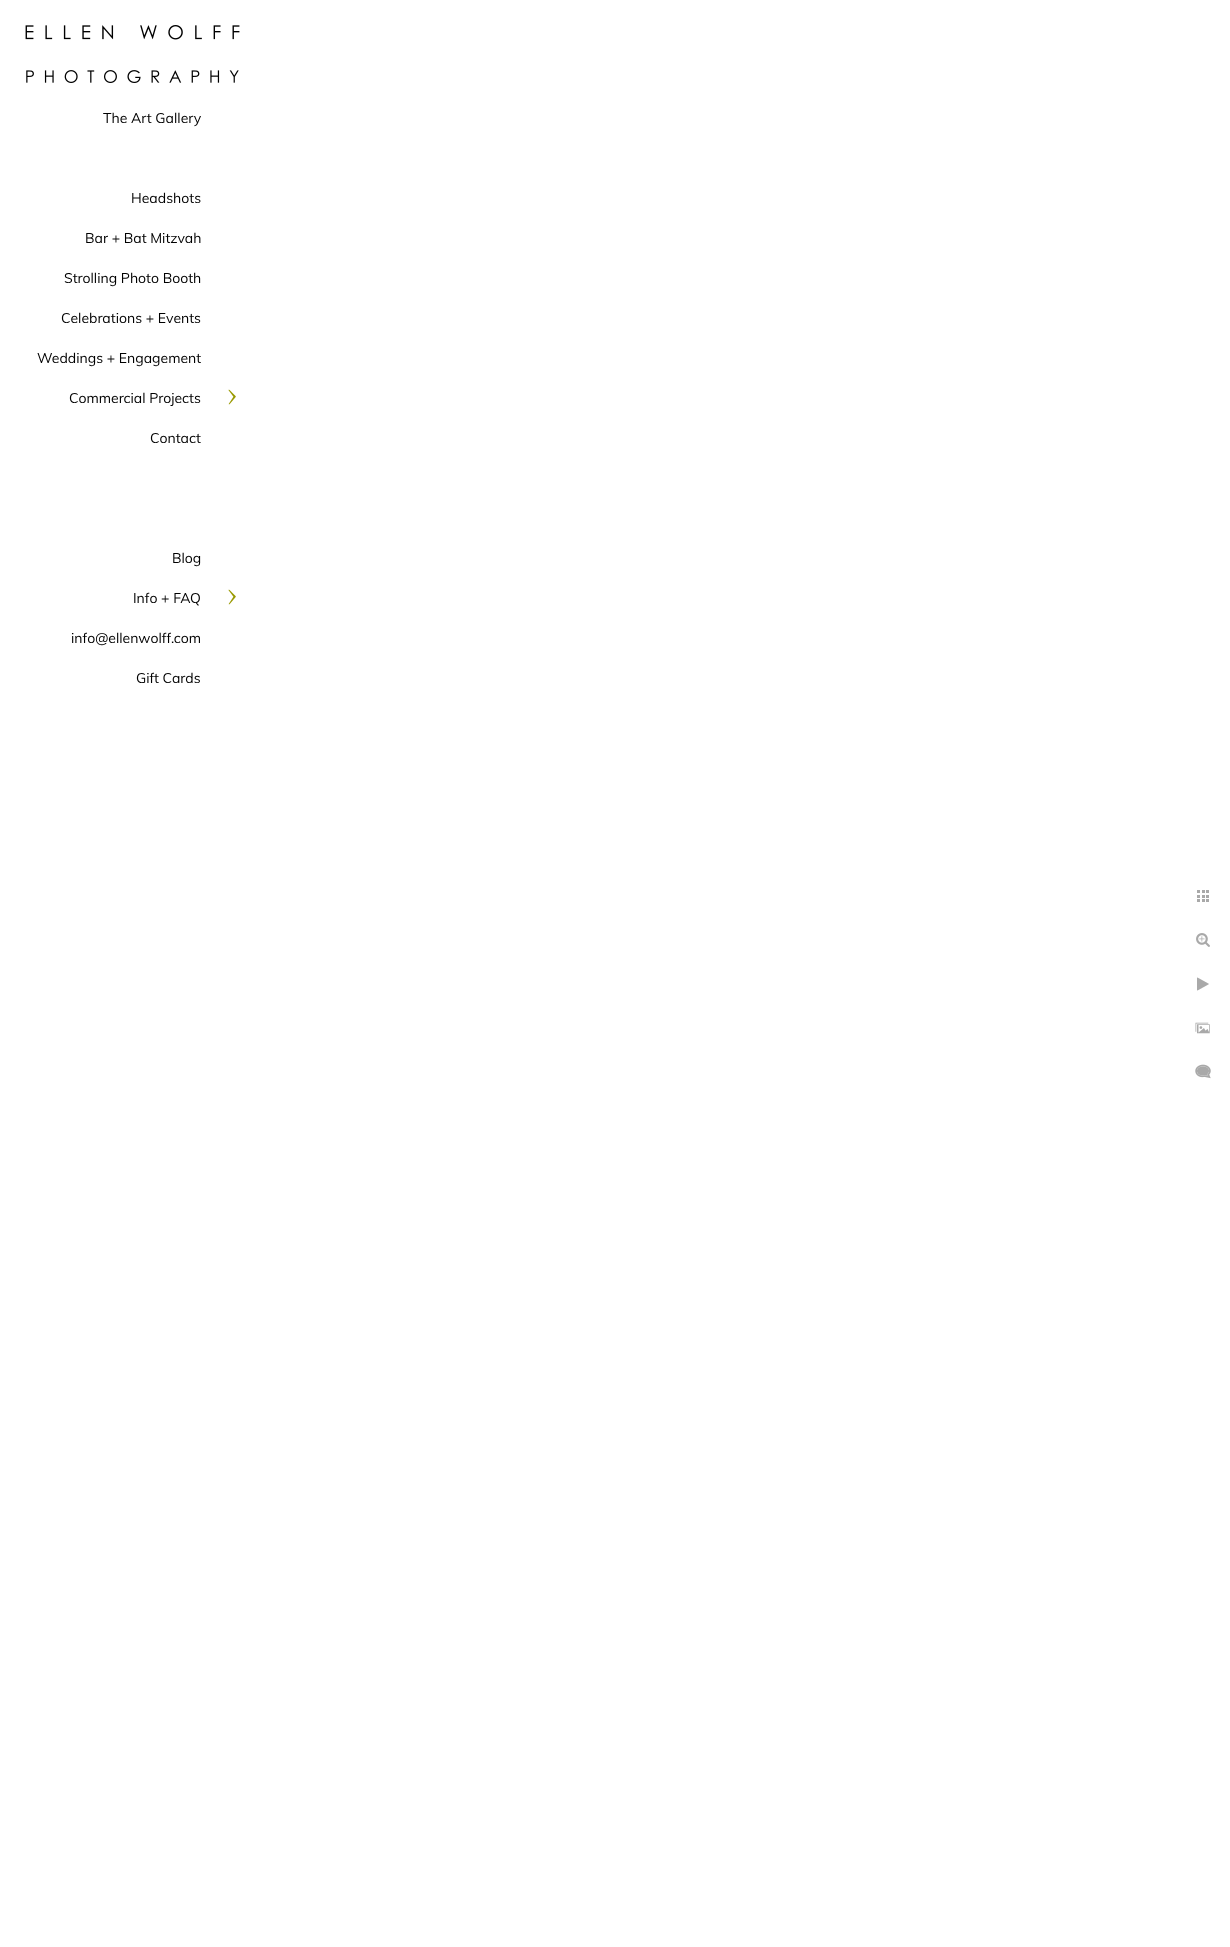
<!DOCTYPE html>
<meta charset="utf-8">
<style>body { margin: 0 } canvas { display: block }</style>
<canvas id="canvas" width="1230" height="1947"></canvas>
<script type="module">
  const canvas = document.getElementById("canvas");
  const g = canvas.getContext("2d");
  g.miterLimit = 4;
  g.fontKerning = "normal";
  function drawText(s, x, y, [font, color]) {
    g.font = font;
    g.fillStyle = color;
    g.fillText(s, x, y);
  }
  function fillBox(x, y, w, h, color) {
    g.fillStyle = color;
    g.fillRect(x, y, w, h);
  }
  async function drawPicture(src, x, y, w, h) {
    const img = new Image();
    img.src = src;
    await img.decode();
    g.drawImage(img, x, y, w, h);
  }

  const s1 = ["14px Muli", "#000000"];

  fillBox(0, 0, 1230, 1947, "#FFFFFF");
  await drawPicture("pic1.png", 25, 25, 215, 58);
  drawText("The Art Gallery", 103, 123, s1);
  drawText("Headshots", 131, 203, s1);
  drawText("Bar + Bat Mitzvah", 85, 243, s1);
  drawText("Strolling Photo Booth", 64, 283, s1);
  drawText("Celebrations + Events", 61, 323, s1);
  drawText("Weddings + Engagement", 37, 363, s1);
  drawText("Commercial Projects", 69, 403, s1);
  await drawPicture("pic2.png", 228, 389, 8, 16);
  drawText("Contact", 150, 443, s1);
  drawText("Blog", 172, 563, s1);
  drawText("Info + FAQ", 133, 603, s1);
  await drawPicture("pic2.png", 228, 589, 8, 16);
  drawText("info@ellenwolff.com", 71, 643, s1);
  drawText("Gift Cards", 136, 683, s1);
  await drawPicture("pic3.png", 1197, 890, 12, 12);
  await drawPicture("pic4.png", 1196, 933, 14, 14);
  await drawPicture("pic5.png", 1197, 977, 12, 14);
  await drawPicture("pic6.png", 1195, 1022, 15, 12);
  await drawPicture("pic7.png", 1195, 1064, 16, 15);
</script>
